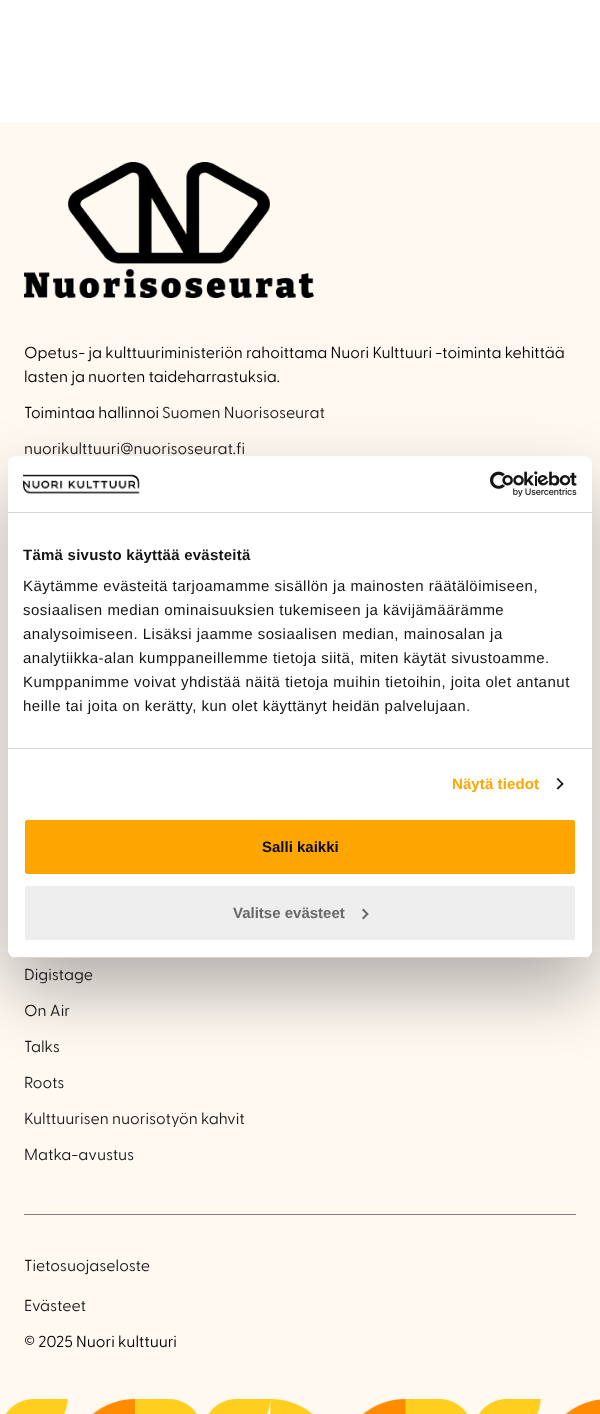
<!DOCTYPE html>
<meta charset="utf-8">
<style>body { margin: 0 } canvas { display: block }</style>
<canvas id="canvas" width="600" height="1414"></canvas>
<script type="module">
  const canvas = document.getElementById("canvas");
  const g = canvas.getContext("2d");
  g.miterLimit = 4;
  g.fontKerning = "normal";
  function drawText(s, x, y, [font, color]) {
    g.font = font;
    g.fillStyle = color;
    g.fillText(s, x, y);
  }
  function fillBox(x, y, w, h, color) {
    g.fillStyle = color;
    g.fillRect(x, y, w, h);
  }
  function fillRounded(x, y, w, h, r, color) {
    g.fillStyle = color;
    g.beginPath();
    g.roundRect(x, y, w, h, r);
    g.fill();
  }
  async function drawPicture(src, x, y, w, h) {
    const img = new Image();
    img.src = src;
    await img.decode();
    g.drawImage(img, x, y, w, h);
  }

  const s1 = ["16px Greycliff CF", "#000000"];
  const s2 = ["16px Greycliff CF", "#1A1A1A"];
  const s3 = ["bold 15px Liberation Sans", "#141414"];
  const s4 = ["15px Liberation Sans", "#141414"];
  const s5 = ["bold 15px Liberation Sans", "#FEA600"];
  const s6 = ["bold 15px Liberation Sans", "#0B0B0B"];
  const s7 = ["bold 15px Liberation Sans", "#686868"];

  fillBox(0, 0, 600, 1414, "#FFFFFF");
  fillBox(0, 122, 600, 1292, "#FFF9F2");
  await drawPicture("pic1.png", 24, 162, 290, 136);
  drawText("Opetus- ja kulttuuriministeriön rahoittama Nuori Kulttuuri -toiminta kehittää", 24, 358, s1);
  drawText("lasten ja nuorten taideharrastuksia.", 24, 382, s1);
  drawText("Toimintaa hallinnoi", 24, 418, s1);
  drawText("Suomen Nuorisoseurat", 162, 418, s2);
  drawText("nuorikulttuuri@nuorisoseurat.fi", 24, 454, s2);
  drawText("Digistage", 24, 980, s2);
  drawText("On Air", 24, 1016, s2);
  drawText("Talks", 24, 1052, s2);
  drawText("Roots", 24, 1088, s2);
  drawText("Kulttuurisen nuorisotyön kahvit", 24, 1124, s2);
  drawText("Matka-avustus", 24, 1160, s2);
  fillBox(24, 1214, 552, 1, "#808080");
  drawText("Tietosuojaseloste", 24, 1271, s2);
  drawText("Evästeet", 24, 1311, s2);
  drawText("© 2025 Nuori kulttuuri", 24, 1347, s1);
  await drawPicture("pic2.png", 5, 1399, 595, 15);
  g.fillStyle = "rgba(0, 0, 0, 0.3)";
  g.filter = "blur(34px)";
  g.beginPath();
  g.roundRect(8, 488, 584, 502, 8);
  g.fill();
  g.filter = "none";
  fillRounded(8, 456, 584, 502, 8, "#FFFFFF");
  fillBox(8, 512, 584, 1, "#D6D6D6");
  await drawPicture("pic3.png", 23, 474, 117, 20);
  await drawPicture("pic4.png", 490, 471, 87, 26);
  fillBox(8, 748, 584, 1, "#D6D6D6");
  g.letterSpacing = "0.25px";
  drawText("Tämä sivusto käyttää evästeitä", 23, 560, s3);
  g.letterSpacing = "0.5px";
  drawText("Käytämme evästeitä tarjoamamme sisällön ja mainosten räätälöimiseen,", 23, 591, s4);
  drawText("sosiaalisen median ominaisuuksien tukemiseen ja kävijämäärämme", 23, 615, s4);
  drawText("analysoimiseen. Lisäksi jaamme sosiaalisen median, mainosalan ja", 23, 639, s4);
  drawText("analytiikka-alan kumppaneillemme tietoja siitä, miten käytät sivustoamme.", 23, 663, s4);
  drawText("Kumppanimme voivat yhdistää näitä tietoja muihin tietoihin, joita olet antanut", 23, 687, s4);
  drawText("heille tai joita on kerätty, kun olet käyttänyt heidän palvelujaan.", 23, 711, s4);
  g.letterSpacing = "0.1px";
  drawText("Näytä tiedot", 452, 789, s5);
  g.fillStyle = "#141414";
  g.beginPath();
  g.moveTo(558, 778);
  g.lineTo(563.5, 784);
  g.lineTo(562.5, 785);
  g.lineTo(556.5, 779);
  g.closePath();
  g.fill();
  g.beginPath();
  g.moveTo(562.5, 782.5);
  g.lineTo(563.5, 784);
  g.lineTo(558, 789.5);
  g.lineTo(556.5, 788.5);
  g.closePath();
  g.fill();
  g.save();
  g.beginPath();
  g.roundRect(8, 456, 584, 502, 8);
  g.clip();
  fillBox(8, 957, 584, 1, "#D6D6D6");
  g.restore();
  g.fillStyle = "#FEA600";
  g.beginPath();
  g.roundRect(24, 819, 552, 56, 3);
  g.fill();
  g.strokeStyle = "#FFFFFF";
  g.lineWidth = 2;
  g.stroke();
  g.letterSpacing = "0px";
  drawText("Salli kaikki", 262, 852, s6);
  g.fillStyle = "#EEEEEE";
  g.beginPath();
  g.roundRect(24, 885, 552, 56, 3);
  g.fill();
  g.stroke();
  drawText("Valitse evästeet", 233, 918, s7);
  g.beginPath();
  g.moveTo(363.5, 908.5);
  g.lineTo(368.5, 914);
  g.lineTo(367.5, 915.5);
  g.lineTo(362, 910);
  g.closePath();
  g.fill();
  g.beginPath();
  g.moveTo(367.5, 912.5);
  g.lineTo(368.5, 914);
  g.lineTo(363.5, 919.5);
  g.lineTo(362, 918);
  g.closePath();
  g.fill();
</script>
